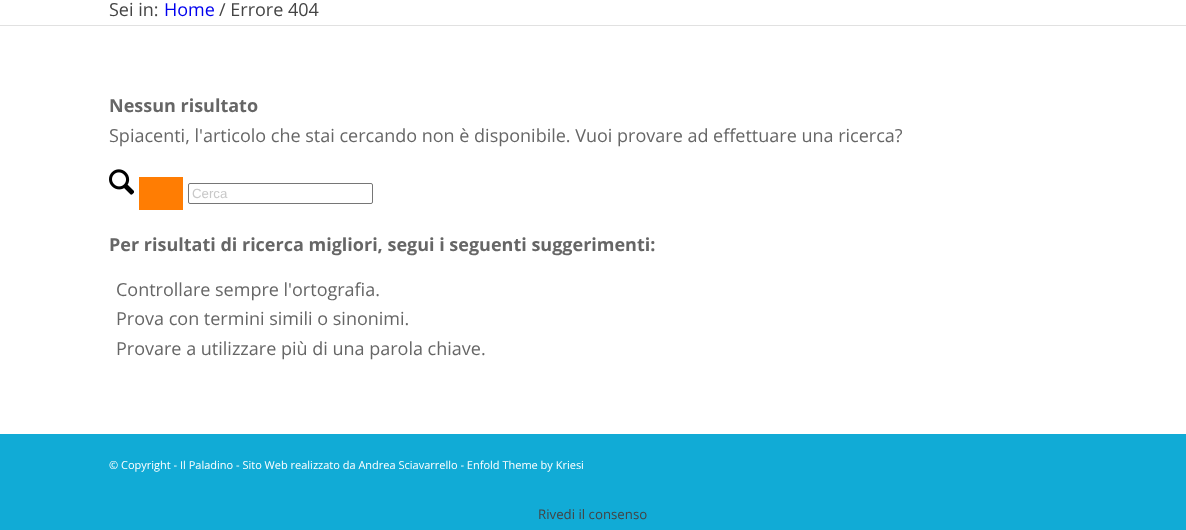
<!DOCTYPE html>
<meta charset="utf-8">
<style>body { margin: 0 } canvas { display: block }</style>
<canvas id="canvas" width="1186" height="530"></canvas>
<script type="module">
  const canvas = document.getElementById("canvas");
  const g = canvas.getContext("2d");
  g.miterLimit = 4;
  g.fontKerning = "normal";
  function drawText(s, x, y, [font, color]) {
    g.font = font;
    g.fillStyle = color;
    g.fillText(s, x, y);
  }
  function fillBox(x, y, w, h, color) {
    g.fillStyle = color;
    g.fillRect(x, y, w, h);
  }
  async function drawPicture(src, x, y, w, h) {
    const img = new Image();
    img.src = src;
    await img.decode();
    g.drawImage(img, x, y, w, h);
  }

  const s1 = ["18px Open Sans", "#444444"];
  const s2 = ["18px Open Sans", "#0000EE"];
  const s3 = ["bold 18px Open Sans", "#666666"];
  const s4 = ["18px Open Sans", "#666666"];
  const s5 = ["13.25px Liberation Sans", "#C8C8C8"];
  const s6 = ["11px Open Sans", "#FFFFFF"];
  const s7 = ["13.25px Open Sans", "#444444"];

  fillBox(0, 0, 1186, 530, "#11ABD6");
  fillBox(0, 0, 1186, 434, "#FFFFFF");
  drawText("Sei in:", 109, 16, s1);
  drawText("Home", 164, 16, s2);
  drawText("/ Errore 404", 219, 16, s1);
  fillBox(0, 25, 1186, 1, "#E1E1E1");
  drawText("Nessun risultato", 109, 112, s3);
  drawText("Spiacenti, l'articolo che stai cercando non è disponibile. Vuoi provare ad effettuare una ricerca?", 109, 142, s4);
  await drawPicture("pic1.png", 109, 169, 25, 26);
  fillBox(139, 177, 44, 33, "#FF7D03");
  g.beginPath();
  g.roundRect(188.5, 183.5, 184, 20, 1.5);
  g.strokeStyle = "#767676";
  g.stroke();
  drawText("Cerca", 192, 198, s5);
  drawText("Per risultati di ricerca migliori, segui i seguenti suggerimenti:", 109, 251, s3);
  drawText("Controllare sempre l'ortografia.", 116, 296, s4);
  drawText("Prova con termini simili o sinonimi.", 116, 325, s4);
  drawText("Provare a utilizzare più di una parola chiave.", 116, 355, s4);
  drawText("© Copyright - Il Paladino - Sito Web realizzato da Andrea Sciavarrello - Enfold Theme by Kriesi", 109, 469, s6);
  drawText("Rivedi il consenso", 538, 519, s7);
</script>
